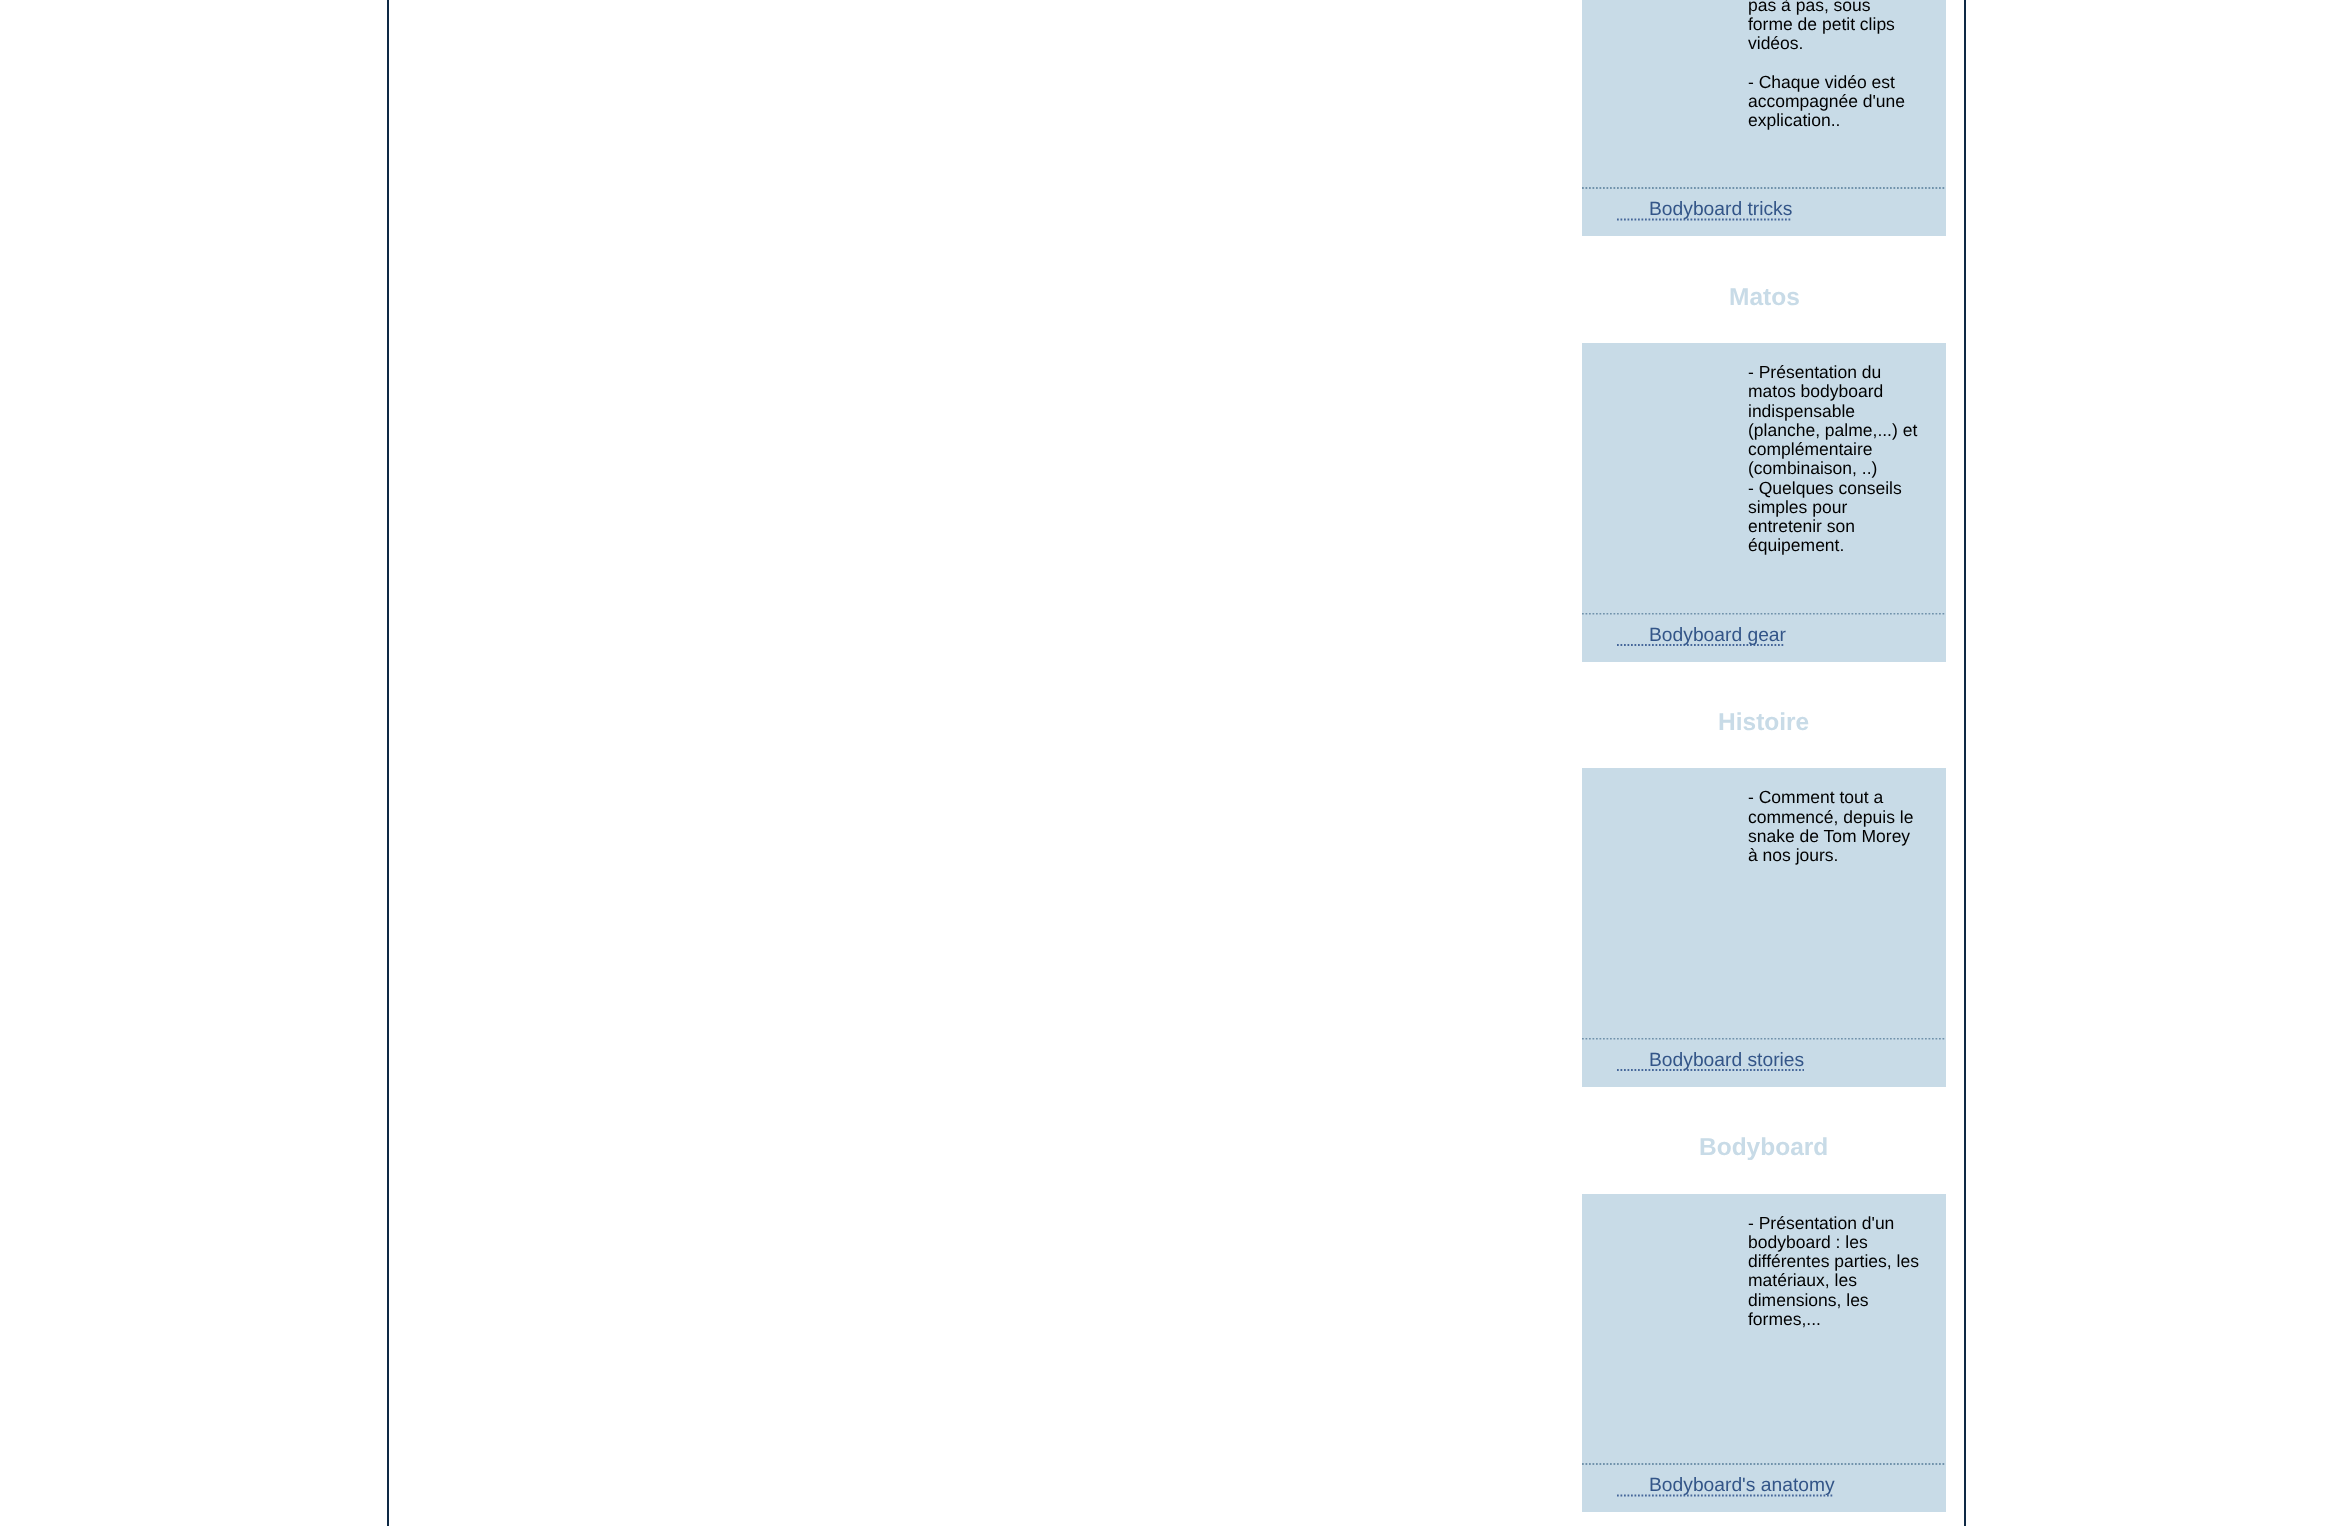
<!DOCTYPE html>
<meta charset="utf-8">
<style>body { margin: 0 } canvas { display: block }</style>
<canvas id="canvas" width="2352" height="1526"></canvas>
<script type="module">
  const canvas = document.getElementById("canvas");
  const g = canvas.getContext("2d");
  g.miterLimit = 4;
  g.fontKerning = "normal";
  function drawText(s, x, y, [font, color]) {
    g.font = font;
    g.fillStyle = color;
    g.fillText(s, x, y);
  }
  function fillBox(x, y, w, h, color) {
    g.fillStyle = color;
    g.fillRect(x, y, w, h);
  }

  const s1 = ["17.5px Liberation Sans", "#000000"];
  const s2 = ["19.25px Liberation Sans", "#335588"];
  const s3 = ["bold 24.5px Liberation Sans", "#C8DBE7"];

  fillBox(0, 0, 2352, 1526, "#FFFFFF");
  fillBox(1964, 0, 2, 1526, "#0E2945");
  fillBox(387, 0, 2, 1526, "#0E2945");
  fillBox(1582, 0, 364, 236, "#C8DBE7");
  drawText("pas à pas, sous", 1748, 11, s1);
  drawText("forme de petit clips", 1748, 30, s1);
  drawText("vidéos.", 1748, 49, s1);
  drawText("- Chaque vidéo est", 1748, 88, s1);
  drawText("accompagnée d'une", 1748, 107, s1);
  drawText("explication..", 1748, 126, s1);
  g.beginPath();
  g.moveTo(1582, 188);
  g.lineTo(1946, 188);
  g.strokeStyle = "#7092AB";
  g.lineWidth = 1.8;
  g.setLineDash([1.75, 1.75]);
  g.stroke();
  g.beginPath();
  g.moveTo(1617, 219.5);
  g.lineTo(1792, 219.5);
  g.strokeStyle = "#446699";
  g.stroke();
  drawText("Bodyboard tricks", 1649, 215, s2);
  drawText("Matos", 1729, 305, s3);
  fillBox(1582, 613, 364, 49, "#C8DBE7");
  g.beginPath();
  g.moveTo(1582, 613.5);
  g.lineTo(1946, 613.5);
  g.strokeStyle = "#7092AB";
  g.stroke();
  fillBox(1582, 343, 364, 270, "#C8DBE7");
  drawText("- Présentation du", 1748, 378, s1);
  drawText("matos bodyboard", 1748, 397, s1);
  drawText("indispensable", 1748, 417, s1);
  drawText("(planche, palme,...) et", 1748, 436, s1);
  drawText("complémentaire", 1748, 455, s1);
  drawText("(combinaison, ..)", 1748, 474, s1);
  drawText("- Quelques conseils", 1748, 494, s1);
  drawText("simples pour", 1748, 513, s1);
  drawText("entretenir son", 1748, 532, s1);
  drawText("équipement.", 1748, 551, s1);
  g.beginPath();
  g.moveTo(1617, 645);
  g.lineTo(1785, 645);
  g.strokeStyle = "#446699";
  g.stroke();
  drawText("Bodyboard gear", 1649, 641, s2);
  drawText("Histoire", 1718, 730, s3);
  fillBox(1582, 1038, 364, 49, "#C8DBE7");
  g.beginPath();
  g.moveTo(1582, 1038.5);
  g.lineTo(1946, 1038.5);
  g.strokeStyle = "#7092AB";
  g.stroke();
  fillBox(1582, 768, 364, 270, "#C8DBE7");
  drawText("- Comment tout a", 1748, 803, s1);
  drawText("commencé, depuis le", 1748, 823, s1);
  drawText("snake de Tom Morey", 1748, 842, s1);
  drawText("à nos jours.", 1748, 861, s1);
  g.beginPath();
  g.moveTo(1617, 1070);
  g.lineTo(1804, 1070);
  g.strokeStyle = "#446699";
  g.stroke();
  drawText("Bodyboard stories", 1649, 1066, s2);
  drawText("Bodyboard", 1699, 1155, s3);
  fillBox(1582, 1194, 364, 318, "#C8DBE7");
  drawText("- Présentation d'un", 1748, 1229, s1);
  drawText("bodyboard : les", 1748, 1248, s1);
  drawText("différentes parties, les", 1748, 1267, s1);
  drawText("matériaux, les", 1748, 1286, s1);
  drawText("dimensions, les", 1748, 1306, s1);
  drawText("formes,...", 1748, 1325, s1);
  g.beginPath();
  g.moveTo(1582, 1464);
  g.lineTo(1946, 1464);
  g.strokeStyle = "#7092AB";
  g.stroke();
  g.beginPath();
  g.moveTo(1617, 1495.5);
  g.lineTo(1834, 1495.5);
  g.strokeStyle = "#446699";
  g.stroke();
  drawText("Bodyboard's anatomy", 1649, 1491, s2);
</script>
